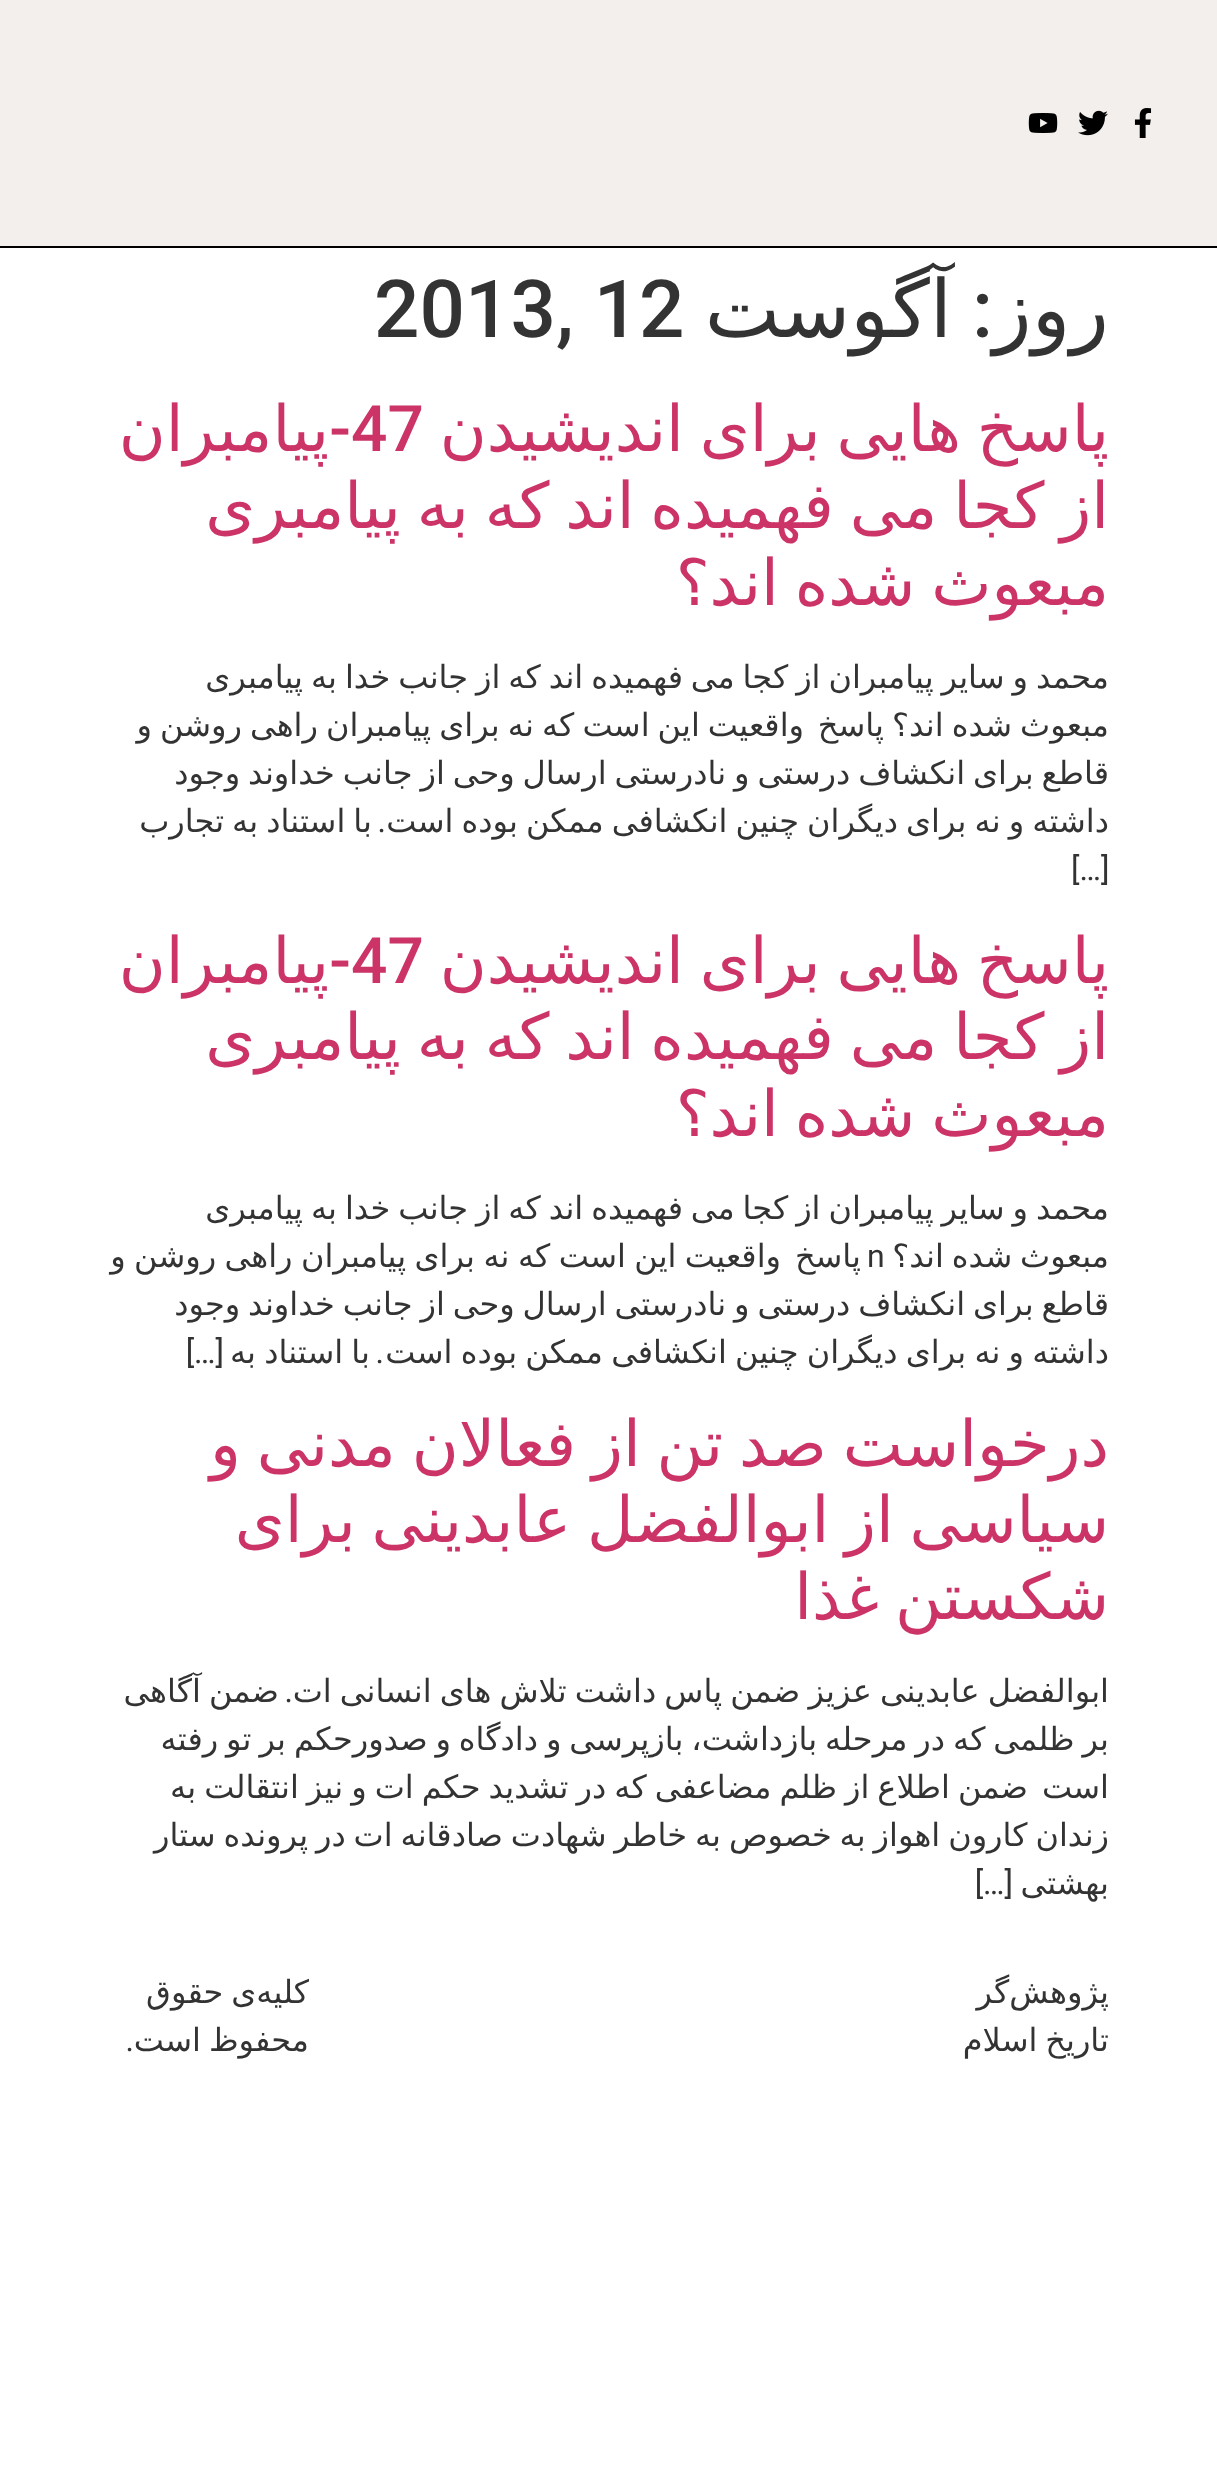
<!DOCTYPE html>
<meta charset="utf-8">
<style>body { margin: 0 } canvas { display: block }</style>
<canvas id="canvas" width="1217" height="2474"></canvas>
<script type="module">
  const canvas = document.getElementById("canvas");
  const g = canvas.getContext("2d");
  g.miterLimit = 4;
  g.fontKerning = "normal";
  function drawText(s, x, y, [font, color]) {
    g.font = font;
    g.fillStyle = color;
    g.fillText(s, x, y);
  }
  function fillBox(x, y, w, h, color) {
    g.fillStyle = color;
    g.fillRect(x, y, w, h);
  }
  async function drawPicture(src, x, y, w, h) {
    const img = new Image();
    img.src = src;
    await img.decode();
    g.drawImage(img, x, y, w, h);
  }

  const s1 = ["80px DejaVu Sans", "#333333"];
  const s2 = ["500 80px Roboto", "#333333"];
  const s3 = ["64px DejaVu Sans", "#CC3366"];
  const s4 = ["500 64px Roboto", "#CC3366"];
  const s5 = ["32px DejaVu Sans", "#333333"];
  const s6 = ["32px Roboto", "#333333"];

  fillBox(0, 0, 1217, 2474, "#FFFFFF");
  fillBox(0, 0, 1217, 246, "#F2EFEC");
  fillBox(0, 246, 1217, 2, "#000000");
  await drawPicture("pic1.png", 1134, 108, 18, 30);
  await drawPicture("pic2.png", 1078, 110, 30, 26);
  await drawPicture("pic3.png", 1028, 113, 30, 20);
  g.direction = "rtl";
  drawText("روز", 1109, 337, s1);
  drawText(":", 993, 337, s2);
  drawText("آگوست", 952, 337, s1);
  g.direction = "ltr";
  drawText("2013, 12", 374, 337, s2);
  g.wordSpacing = "-4.5px";
  g.direction = "rtl";
  drawText("پاسخ هایی برای اندیشیدن", 1109, 451, s3);
  g.wordSpacing = "0px";
  g.direction = "ltr";
  drawText("47", 351, 451, s4);
  g.direction = "rtl";
  drawText("-", 351, 451, s4);
  drawText("پیامبران", 329, 451, s3);
  g.wordSpacing = "-4.5px";
  drawText("از کجا می فهمیده اند که به پیامبری", 1109, 528, s3);
  drawText("مبعوث شده اند؟", 1109, 605, s3);
  g.wordSpacing = "-2.25px";
  drawText("محمد و سایر پیامبران از کجا می فهمیده اند که از جانب خدا به پیامبری", 1109, 688, s5);
  g.wordSpacing = "-2.1px";
  drawText("مبعوث شده اند؟ پاسخ", 1109, 736, s5);
  drawText("واقعیت این است که نه برای پیامبران راهی روشن و", 804, 736, s5);
  g.wordSpacing = "-2.25px";
  drawText("قاطع برای انکشاف درستی و نادرستی ارسال وحی از جانب خداوند وجود", 1109, 784, s5);
  g.wordSpacing = "-2.1px";
  drawText("داشته و نه برای دیگران چنین انکشافی ممکن بوده است", 1109, 832, s5);
  g.wordSpacing = "0px";
  drawText(".", 386, 832, s6);
  g.wordSpacing = "-2.1px";
  drawText("با استناد به تجارب", 372, 832, s5);
  g.wordSpacing = "0px";
  g.direction = "ltr";
  drawText("[…]", 1071, 880, s6);
  g.wordSpacing = "-4.5px";
  g.direction = "rtl";
  drawText("پاسخ هایی برای اندیشیدن", 1109, 983, s3);
  g.wordSpacing = "0px";
  g.direction = "ltr";
  drawText("47", 351, 983, s4);
  g.direction = "rtl";
  drawText("-", 351, 983, s4);
  drawText("پیامبران", 329, 983, s3);
  g.wordSpacing = "-4.5px";
  drawText("از کجا می فهمیده اند که به پیامبری", 1109, 1059, s3);
  drawText("مبعوث شده اند؟", 1109, 1136, s3);
  g.wordSpacing = "-2.25px";
  drawText("محمد و سایر پیامبران از کجا می فهمیده اند که از جانب خدا به پیامبری", 1109, 1219, s5);
  drawText("مبعوث شده اند؟", 1109, 1267, s5);
  g.wordSpacing = "0px";
  g.direction = "ltr";
  drawText("n", 867, 1267, s6);
  g.direction = "rtl";
  drawText("پاسخ", 861, 1267, s5);
  g.wordSpacing = "-1.75px";
  drawText("واقعیت این است که نه برای پیامبران راهی روشن و", 781, 1267, s5);
  g.wordSpacing = "-2.25px";
  drawText("قاطع برای انکشاف درستی و نادرستی ارسال وحی از جانب خداوند وجود", 1109, 1315, s5);
  g.wordSpacing = "-2px";
  drawText("داشته و نه برای دیگران چنین انکشافی ممکن بوده است", 1109, 1363, s5);
  g.wordSpacing = "0px";
  drawText(".", 384, 1363, s6);
  g.wordSpacing = "-2px";
  drawText("با استناد به", 370, 1363, s5);
  g.wordSpacing = "0px";
  drawText("[…]", 224, 1363, s6);
  g.wordSpacing = "-4.5px";
  drawText("درخواست صد تن از فعالان مدنی و", 1109, 1466, s3);
  drawText("سیاسی از ابوالفضل عابدینی برای", 1109, 1542, s3);
  drawText("شکستن غذا", 1109, 1619, s3);
  g.wordSpacing = "-2px";
  drawText("ابوالفضل عابدینی عزیز ضمن پاس داشت تلاش های انسانی ات", 1109, 1702, s5);
  g.wordSpacing = "0px";
  drawText(".", 293, 1702, s6);
  g.wordSpacing = "-2px";
  drawText("ضمن آگاهی", 279, 1702, s5);
  g.wordSpacing = "-2.25px";
  drawText("بر ظلمی که در مرحله بازداشت، بازپرسی و دادگاه و صدورحکم بر تو رفته", 1109, 1750, s5);
  g.wordSpacing = "0px";
  drawText("است", 1109, 1798, s5);
  g.wordSpacing = "-2.1px";
  drawText("ضمن اطلاع از ظلم مضاعفی که در تشدید حکم ات و نیز انتقالت به", 1028, 1798, s5);
  g.wordSpacing = "-2.25px";
  drawText("زندان كارون اهواز به خصوص به خاطر شهادت صادقانه ات در پرونده ستار", 1109, 1846, s5);
  g.wordSpacing = "0px";
  drawText("بهشتی", 1109, 1894, s5);
  drawText("[…]", 1013, 1894, s6);
  drawText("پژوهش‌گر", 1109, 2003, s5);
  g.wordSpacing = "-2.25px";
  drawText("تاریخ اسلام", 1109, 2051, s5);
  drawText("کلیه‌ی حقوق", 309, 2003, s5);
  drawText("محفوظ است", 309, 2051, s5);
  g.wordSpacing = "0px";
  drawText(".", 134, 2051, s6);
</script>
